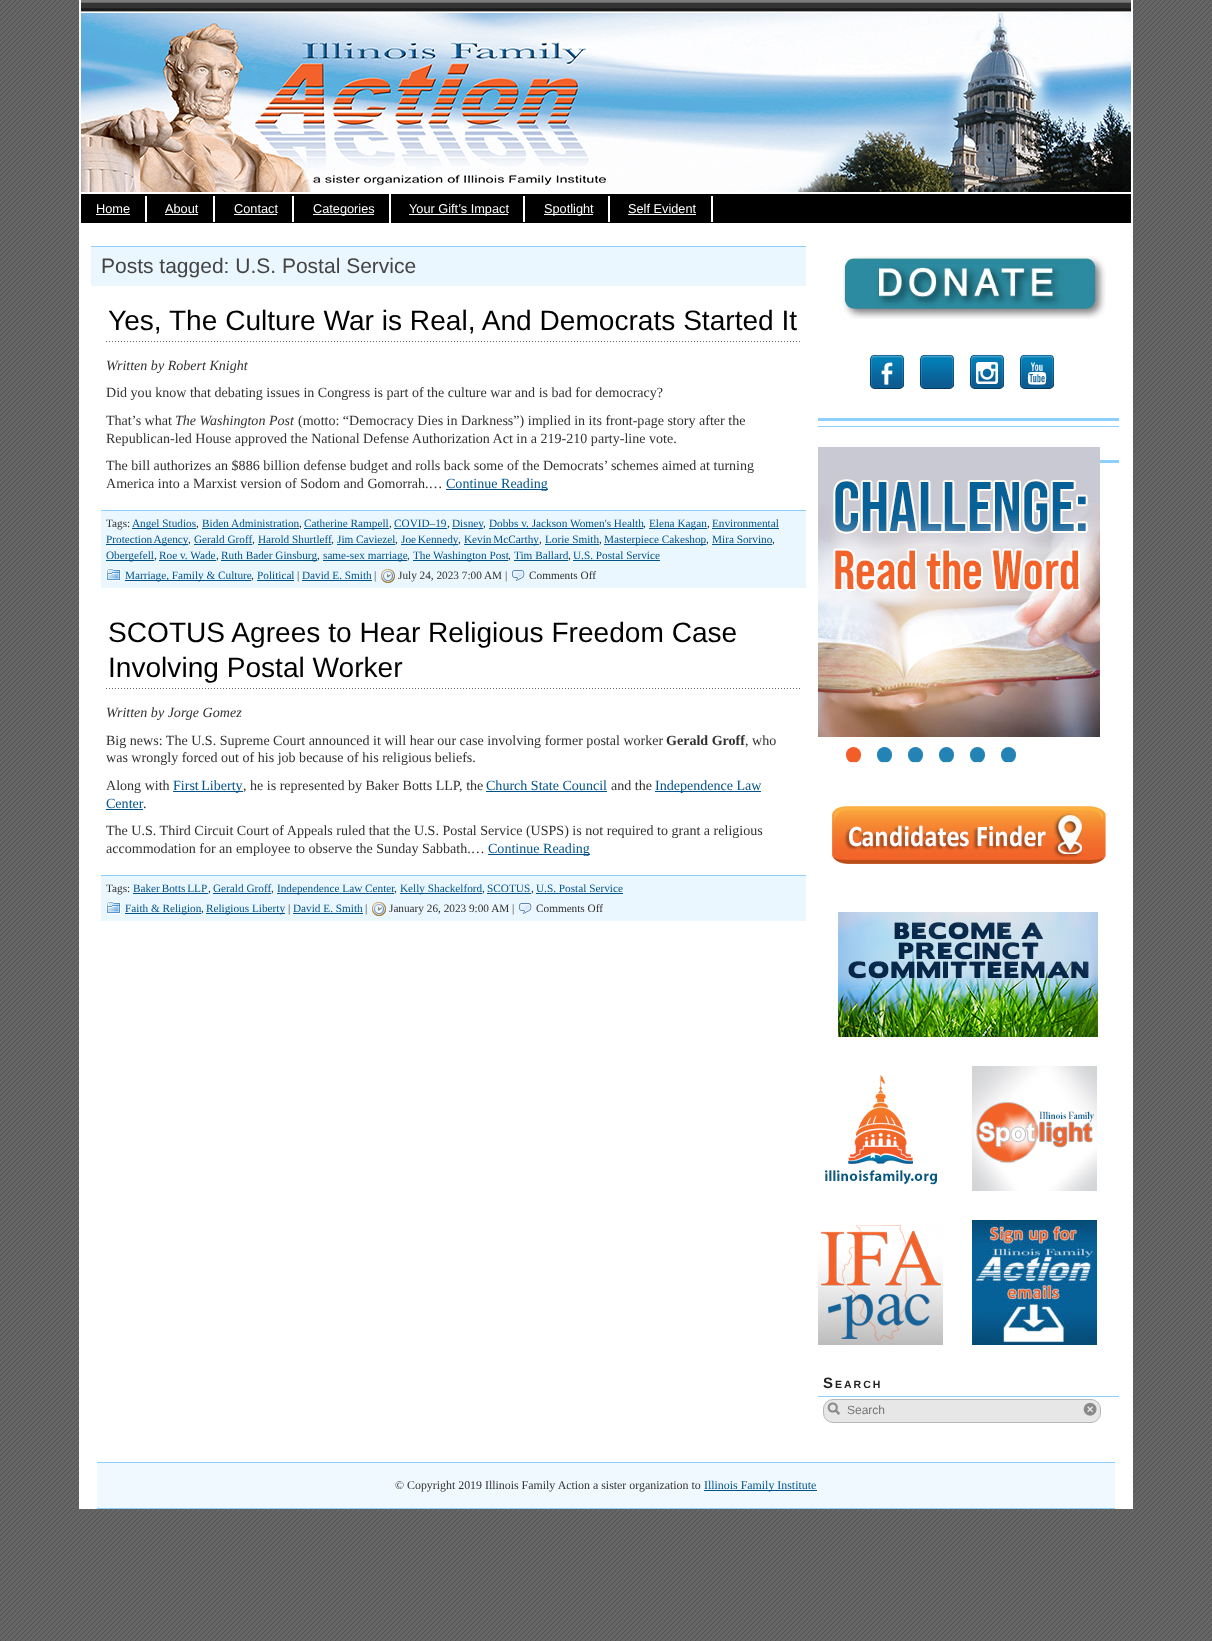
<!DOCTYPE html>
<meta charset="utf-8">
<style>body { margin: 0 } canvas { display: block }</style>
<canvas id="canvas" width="1212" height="1641"></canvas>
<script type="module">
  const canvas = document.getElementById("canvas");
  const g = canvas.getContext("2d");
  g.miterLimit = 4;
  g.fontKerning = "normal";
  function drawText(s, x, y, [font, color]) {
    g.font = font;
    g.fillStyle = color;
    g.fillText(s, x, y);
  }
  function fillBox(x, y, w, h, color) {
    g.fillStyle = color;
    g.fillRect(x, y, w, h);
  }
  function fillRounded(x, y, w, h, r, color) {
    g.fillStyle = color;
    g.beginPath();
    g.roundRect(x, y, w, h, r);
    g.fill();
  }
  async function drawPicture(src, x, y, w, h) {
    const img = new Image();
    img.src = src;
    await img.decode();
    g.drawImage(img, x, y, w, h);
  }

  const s1 = ["12.75px Liberation Sans", "#FFFFFF"];
  const s2 = ["21px Liberation Sans", "#444444"];
  const s3 = ["28.1px Liberation Sans", "#000000"];
  const s4 = ["italic 14.05px Liberation Serif", "#313131"];
  const s5 = ["14.05px Liberation Serif", "#313131"];
  const s6 = ["14.05px Liberation Serif", "#00538A"];
  const s7 = ["11.25px Liberation Serif", "#313131"];
  const s8 = ["11.25px Liberation Serif", "#00538A"];
  const s9 = ["bold 14.05px Liberation Serif", "#313131"];
  const s10 = ["bold 15px Liberation Sans", "#222222"];
  const s11 = ["bold 10.5px Liberation Sans", "#222222"];
  const s12 = ["12px Liberation Sans", "#757575"];
  const s13 = ["11.9px Liberation Serif", "#313131"];
  const s14 = ["11.9px Liberation Serif", "#00538A"];

  fillBox(0, 0, 1212, 1641, "#FFFFFF");
  await drawPicture("pic1.png", 0, 0, 1212, 1641);
  fillBox(79, 0, 1054, 1509, "#FFFFFF");
  await drawPicture("pic2.png", 81, 0, 1050, 12);
  await drawPicture("pic3.png", 81, 13, 1050, 179);
  fillBox(81, 194, 1050, 29, "#000000");
  drawText("Home", 96, 213, s1);
  fillBox(145, 196, 2, 26, "#FFFFFF");
  fillBox(96, 214, 34, 1, "#FFFFFF");
  drawText("About", 165, 213, s1);
  fillBox(213, 196, 2, 26, "#FFFFFF");
  fillBox(165, 214, 33, 1, "#FFFFFF");
  drawText("Contact", 234, 213, s1);
  fillBox(292, 196, 2, 26, "#FFFFFF");
  fillBox(234, 214, 43, 1, "#FFFFFF");
  fillBox(389, 194, 2, 29, "#FFFFFF");
  fillBox(313, 214, 61, 1, "#FFFFFF");
  drawText("Categories", 313, 213, s1);
  fillBox(409, 214, 99, 1, "#FFFFFF");
  drawText("Your Gift’s Impact", 409, 213, s1);
  fillBox(523, 196, 2, 26, "#FFFFFF");
  fillBox(544, 214, 49, 1, "#FFFFFF");
  drawText("Spotlight", 544, 213, s1);
  fillBox(608, 196, 2, 26, "#FFFFFF");
  drawText("Self Evident", 628, 213, s1);
  fillBox(711, 196, 2, 26, "#FFFFFF");
  fillBox(628, 214, 68, 1, "#FFFFFF");
  fillBox(91, 247, 715, 39, "#EBF7FF");
  fillBox(91, 246, 715, 1, "#8CD1FD");
  drawText("Posts tagged: U.S. Postal Service", 101, 273, s2);
  await drawPicture("pic4.png", 106, 341, 694, 1);
  drawText("Yes, The Culture War is Real, And Democrats Started It", 108, 330, s3);
  drawText("Written by Robert Knight", 106, 370, s4);
  drawText("Did you know that debating issues in Congress is part of the culture war and is bad for democracy?", 106, 397, s5);
  drawText("That’s what", 106, 425, s5);
  drawText("The Washington Post", 175, 425, s4);
  drawText("(motto: “Democracy Dies in Darkness”) implied in its front-page story after the", 298, 425, s5);
  drawText("Republican-led House approved the National Defense Authorization Act in a 219-210 party-line vote.", 106, 443, s5);
  drawText("The bill authorizes an $886 billion defense budget and rolls back some of the Democrats’ schemes aimed at turning", 106, 470, s5);
  drawText("America into a Marxist version of Sodom and Gomorrah.…", 106, 488, s5);
  fillBox(446, 489, 102, 1, "#00538A");
  drawText("Continue Reading", 446, 488, s6);
  fillBox(101, 511, 705, 77, "#EBF7FF");
  fillBox(101, 510, 705, 1, "#8CD1FD");
  drawText("Tags:", 106, 527, s7);
  fillBox(132, 528, 64, 1, "#00538A");
  drawText("Angel Studios", 132, 527, s8);
  drawText(",", 196, 527, s7);
  drawText("Biden Administration", 202, 527, s8);
  fillBox(202, 528, 97, 1, "#00538A");
  drawText(",", 299, 527, s7);
  fillBox(304, 528, 85, 1, "#00538A");
  drawText("Catherine Rampell", 304, 527, s8);
  drawText(",", 389, 527, s7);
  drawText("COVID–19", 394, 527, s8);
  fillBox(394, 528, 53, 1, "#00538A");
  drawText(",", 447, 527, s7);
  fillBox(452, 528, 31, 1, "#00538A");
  drawText("Disney", 452, 527, s8);
  drawText("Dobbs v. Jackson Women's Health", 489, 527, s8);
  fillBox(489, 528, 154, 1, "#00538A");
  fillBox(649, 528, 58, 1, "#00538A");
  drawText("Elena Kagan", 649, 527, s8);
  drawText("Environmental", 712, 527, s8);
  fillBox(712, 528, 67, 1, "#00538A");
  drawText(",", 483, 527, s7);
  drawText(",", 643, 527, s7);
  drawText(",", 707, 527, s7);
  fillBox(106, 544, 82, 1, "#00538A");
  g.wordSpacing = "-1px";
  drawText("Protection Agency", 106, 543, s8);
  g.wordSpacing = "0px";
  drawText(",", 188, 543, s7);
  drawText("Gerald Groff", 194, 543, s8);
  fillBox(194, 544, 58, 1, "#00538A");
  drawText(",", 252, 543, s7);
  drawText("Harold Shurtleff", 258, 543, s8);
  fillBox(258, 544, 73, 1, "#00538A");
  drawText(",", 331, 543, s7);
  drawText("Jim Caviezel", 337, 543, s8);
  fillBox(337, 544, 58, 1, "#00538A");
  drawText(",", 395, 543, s7);
  fillBox(401, 544, 57, 1, "#00538A");
  g.wordSpacing = "-1px";
  drawText("Joe Kennedy", 401, 543, s8);
  g.wordSpacing = "0px";
  drawText(",", 458, 543, s7);
  fillBox(464, 544, 75, 1, "#00538A");
  g.wordSpacing = "-1px";
  drawText("Kevin McCarthy", 464, 543, s8);
  g.wordSpacing = "0px";
  drawText(",", 539, 543, s7);
  drawText("Lorie Smith", 545, 543, s8);
  fillBox(545, 544, 54, 1, "#00538A");
  drawText(",", 599, 543, s7);
  fillBox(604, 544, 102, 1, "#00538A");
  drawText("Masterpiece Cakeshop", 604, 543, s8);
  drawText(",", 706, 543, s7);
  drawText("Mira Sorvino", 712, 543, s8);
  fillBox(712, 544, 60, 1, "#00538A");
  drawText(",", 772, 543, s7);
  fillBox(106, 560, 48, 1, "#00538A");
  drawText("Obergefell", 106, 559, s8);
  drawText(",", 154, 559, s7);
  drawText("Roe v. Wade", 159, 559, s8);
  fillBox(159, 560, 57, 1, "#00538A");
  drawText(",", 216, 559, s7);
  fillBox(221, 560, 96, 1, "#00538A");
  drawText("Ruth Bader Ginsburg", 221, 559, s8);
  drawText(",", 317, 559, s7);
  fillBox(323, 560, 84, 1, "#00538A");
  drawText("same-sex marriage", 323, 559, s8);
  drawText(",", 407, 559, s7);
  fillBox(413, 560, 95, 1, "#00538A");
  drawText("The Washington Post", 413, 559, s8);
  drawText(",", 508, 559, s7);
  drawText("Tim Ballard", 514, 559, s8);
  fillBox(514, 560, 54, 1, "#00538A");
  drawText(",", 568, 559, s7);
  drawText("U.S. Postal Service", 573, 559, s8);
  fillBox(573, 560, 87, 1, "#00538A");
  await drawPicture("pic5.png", 106, 568, 15, 13);
  fillBox(125, 580, 126, 1, "#00538A");
  drawText("Marriage, Family & Culture", 125, 579, s8);
  drawText(",", 251, 579, s7);
  drawText("Political", 257, 579, s8);
  fillBox(257, 580, 37, 1, "#00538A");
  drawText("|", 297, 579, s7);
  drawText("David E. Smith", 302, 579, s8);
  fillBox(302, 580, 70, 1, "#00538A");
  drawText("|", 374, 579, s7);
  await drawPicture("pic6.png", 381, 569, 14, 14);
  drawText("July 24, 2023 7:00 AM |", 398, 579, s7);
  await drawPicture("pic7.png", 511, 570, 14, 11);
  drawText("Comments Off", 529, 579, s7);
  await drawPicture("pic4.png", 106, 688, 694, 1);
  drawText("SCOTUS Agrees to Hear Religious Freedom Case", 108, 642, s3);
  drawText("Involving Postal Worker", 108, 677, s3);
  drawText("Written by Jorge Gomez", 106, 717, s4);
  drawText("Big news: The U.S. Supreme Court announced it will hear our case involving former postal worker", 106, 745, s5);
  drawText("Gerald Groff", 666, 745, s9);
  drawText(", who", 745, 745, s5);
  drawText("was wrongly forced out of his job because of his religious beliefs.", 106, 762, s5);
  drawText("Along with", 106, 790, s5);
  fillBox(173, 791, 70, 1, "#00538A");
  g.wordSpacing = "-1px";
  drawText("First Liberty", 173, 790, s6);
  g.wordSpacing = "0px";
  drawText(", he is represented by Baker Botts LLP, the", 243, 790, s5);
  drawText("Church State Council", 486, 790, s6);
  fillBox(486, 791, 121, 1, "#00538A");
  drawText("and the", 611, 790, s5);
  fillBox(655, 791, 106, 1, "#00538A");
  drawText("Independence Law", 655, 790, s6);
  drawText("Center", 106, 808, s6);
  fillBox(106, 809, 37, 1, "#00538A");
  drawText(".", 143, 808, s5);
  drawText("The U.S. Third Circuit Court of Appeals ruled that the U.S. Postal Service (USPS) is not required to grant a religious", 106, 835, s5);
  drawText("accommodation for an employee to observe the Sunday Sabbath.…", 106, 853, s5);
  fillBox(488, 854, 102, 1, "#00538A");
  drawText("Continue Reading", 488, 853, s6);
  fillBox(101, 876, 705, 45, "#EBF7FF");
  fillBox(101, 875, 705, 1, "#8CD1FD");
  drawText("Tags:", 106, 892, s7);
  g.wordSpacing = "-1px";
  drawText("Baker Botts LLP", 133, 892, s8);
  fillBox(133, 893, 75, 1, "#00538A");
  g.wordSpacing = "0px";
  drawText(",", 208, 892, s7);
  drawText("Gerald Groff", 213, 892, s8);
  fillBox(213, 893, 58, 1, "#00538A");
  drawText(",", 271, 892, s7);
  fillBox(277, 893, 117, 1, "#00538A");
  drawText("Independence Law Center", 277, 892, s8);
  drawText(",", 394, 892, s7);
  fillBox(400, 893, 82, 1, "#00538A");
  drawText("Kelly Shackelford", 400, 892, s8);
  drawText(",", 482, 892, s7);
  drawText("SCOTUS", 487, 892, s8);
  fillBox(487, 893, 44, 1, "#00538A");
  drawText(",", 531, 892, s7);
  drawText("U.S. Postal Service", 536, 892, s8);
  fillBox(536, 893, 87, 1, "#00538A");
  await drawPicture("pic5.png", 106, 901, 15, 13);
  fillBox(125, 913, 76, 1, "#00538A");
  drawText("Faith & Religion", 125, 912, s8);
  drawText(",", 201, 912, s7);
  fillBox(206, 913, 79, 1, "#00538A");
  drawText("Religious Liberty", 206, 912, s8);
  drawText("|", 288, 912, s7);
  drawText("David E. Smith", 293, 912, s8);
  fillBox(293, 913, 70, 1, "#00538A");
  drawText("|", 365, 912, s7);
  await drawPicture("pic6.png", 372, 902, 14, 14);
  drawText("January 26, 2023 9:00 AM |", 389, 912, s7);
  await drawPicture("pic7.png", 518, 903, 14, 11);
  drawText("Comments Off", 536, 912, s7);
  await drawPicture("pic8.png", 843, 256, 263, 63);
  await drawPicture("pic9.png", 870, 355, 34, 34);
  await drawPicture("pic10.png", 881, 362, 12, 23);
  await drawPicture("pic9.png", 920, 355, 34, 34);
  await drawPicture("pic9.png", 970, 355, 34, 34);
  await drawPicture("pic11.png", 976, 362, 22, 22);
  await drawPicture("pic9.png", 1020, 355, 34, 34);
  await drawPicture("pic12.png", 1027, 362, 20, 23);
  fillBox(818, 418, 301, 3, "#8CD1FD");
  fillBox(818, 426, 301, 1, "#8CD1FD");
  await drawPicture("pic13.png", 832, 806, 274, 58);
  await drawPicture("pic14.png", 818, 447, 282, 290);
  fillRounded(846, 747, 15, 16, 7.5, "#F25D28");
  fillBox(850, 762, 7, 1, "#EEEEEE");
  fillRounded(877, 747, 15, 16, 7.5, "#2383B5");
  fillBox(881, 762, 7, 1, "#EEEEEE");
  fillRounded(908, 747, 15, 16, 7.5, "#2383B5");
  fillBox(912, 762, 7, 1, "#EEEEEE");
  fillRounded(939, 747, 15, 16, 7.5, "#2383B5");
  fillBox(943, 762, 7, 1, "#EEEEEE");
  fillRounded(970, 747, 15, 16, 7.5, "#2383B5");
  fillBox(974, 762, 7, 1, "#EEEEEE");
  fillRounded(1001, 747, 15, 16, 7.5, "#2383B5");
  fillBox(1005, 762, 7, 1, "#EEEEEE");
  await drawPicture("pic15.png", 838, 912, 260, 125);
  await drawPicture("pic16.png", 825, 1075, 112, 110);
  await drawPicture("pic17.png", 972, 1066, 125, 125);
  await drawPicture("pic18.png", 818, 1225, 125, 120);
  await drawPicture("pic19.png", 972, 1220, 125, 125);
  fillBox(1100, 460, 19, 3, "#8CD1FD");
  fillBox(818, 1396, 301, 1, "#8CD1FD");
  g.letterSpacing = "2px";
  drawText("S", 823, 1388, s10);
  drawText("EARCH", 835, 1388, s11);
  g.fillStyle = "#E7E7E7";
  g.beginPath();
  g.roundRect(823.5, 1399.5, 277, 23, 9.5);
  g.fill();
  g.strokeStyle = "#B7B7B7";
  g.stroke();
  await drawPicture("pic20.png", 827, 1402, 13, 13);
  g.letterSpacing = "0px";
  drawText("Search", 847, 1414, s12);
  await drawPicture("pic21.png", 1083, 1402, 14, 14);
  fillBox(97, 1463, 1018, 45, "#F0F9FF");
  fillBox(97, 1462, 1018, 1, "#8CD1FD");
  fillBox(97, 1508, 1018, 1, "#8CD1FD");
  drawText("© Copyright 2019 Illinois Family Action a sister organization to", 395, 1489, s13);
  fillBox(704, 1490, 113, 1, "#00538A");
  drawText("Illinois Family Institute", 704, 1489, s14);
</script>
